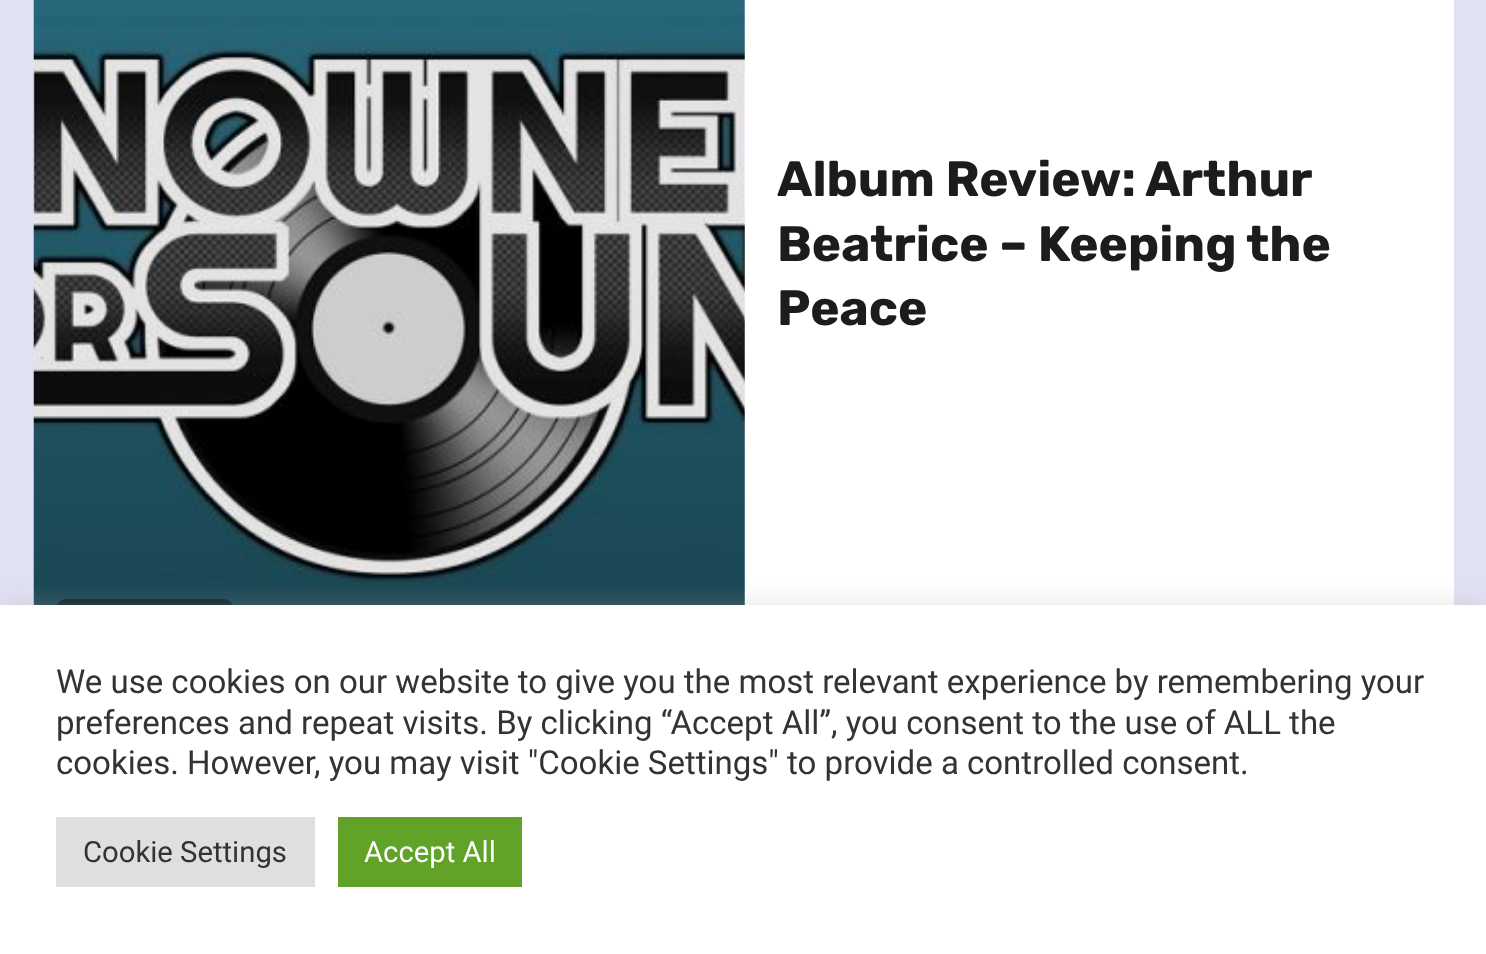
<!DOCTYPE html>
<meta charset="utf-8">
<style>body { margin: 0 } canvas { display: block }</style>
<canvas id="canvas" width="1486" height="954"></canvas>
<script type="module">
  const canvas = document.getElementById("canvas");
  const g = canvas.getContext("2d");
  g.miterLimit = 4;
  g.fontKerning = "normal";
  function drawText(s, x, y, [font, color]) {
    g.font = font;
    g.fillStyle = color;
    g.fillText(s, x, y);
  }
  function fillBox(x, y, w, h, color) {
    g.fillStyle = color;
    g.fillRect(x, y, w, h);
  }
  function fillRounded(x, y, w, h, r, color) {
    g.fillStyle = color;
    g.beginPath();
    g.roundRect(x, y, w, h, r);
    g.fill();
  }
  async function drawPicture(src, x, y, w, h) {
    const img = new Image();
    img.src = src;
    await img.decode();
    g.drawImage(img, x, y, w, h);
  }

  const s1 = ["bold 49.5px Rubik", "#1C1C1C"];
  const s2 = ["33px Roboto", "#333333"];
  const s3 = ["29.25px Roboto", "#333333"];
  const s4 = ["29.25px Roboto", "#FFFFFF"];

  fillBox(0, 0, 1486, 954, "#E1E1F4");
  fillBox(744, 0, 710, 605, "#FFFFFF");
  await drawPicture("pic1.png", 33, 0, 712, 605);
  fillRounded(56, 599, 178, 54, 11, "rgba(0, 0, 0, 0.5)");
  drawText("Album Review: Arthur", 777, 196, s1);
  drawText("Beatrice – Keeping the", 777, 261, s1);
  drawText("Peace", 777, 325, s1);
  g.fillStyle = "rgba(172, 171, 171, 0.3)";
  g.filter = "blur(11px)";
  g.beginPath();
  g.rect(0, 603, 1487, 349);
  g.fill();
  g.filter = "none";
  fillBox(0, 605, 1486, 349, "#FFFFFF");
  drawText("We use cookies on our website to give you the most relevant experience by remembering your", 56, 693, s2);
  drawText("preferences and repeat visits. By clicking “Accept All”, you consent to the use of ALL the", 56, 734, s2);
  drawText("cookies. However, you may visit \"Cookie Settings\" to provide a controlled consent.", 56, 774, s2);
  fillBox(56, 817, 259, 70, "#DEDFE0");
  drawText("Cookie Settings", 83, 862, s3);
  fillBox(338, 817, 184, 70, "#61A229");
  drawText("Accept All", 364, 862, s4);
</script>
